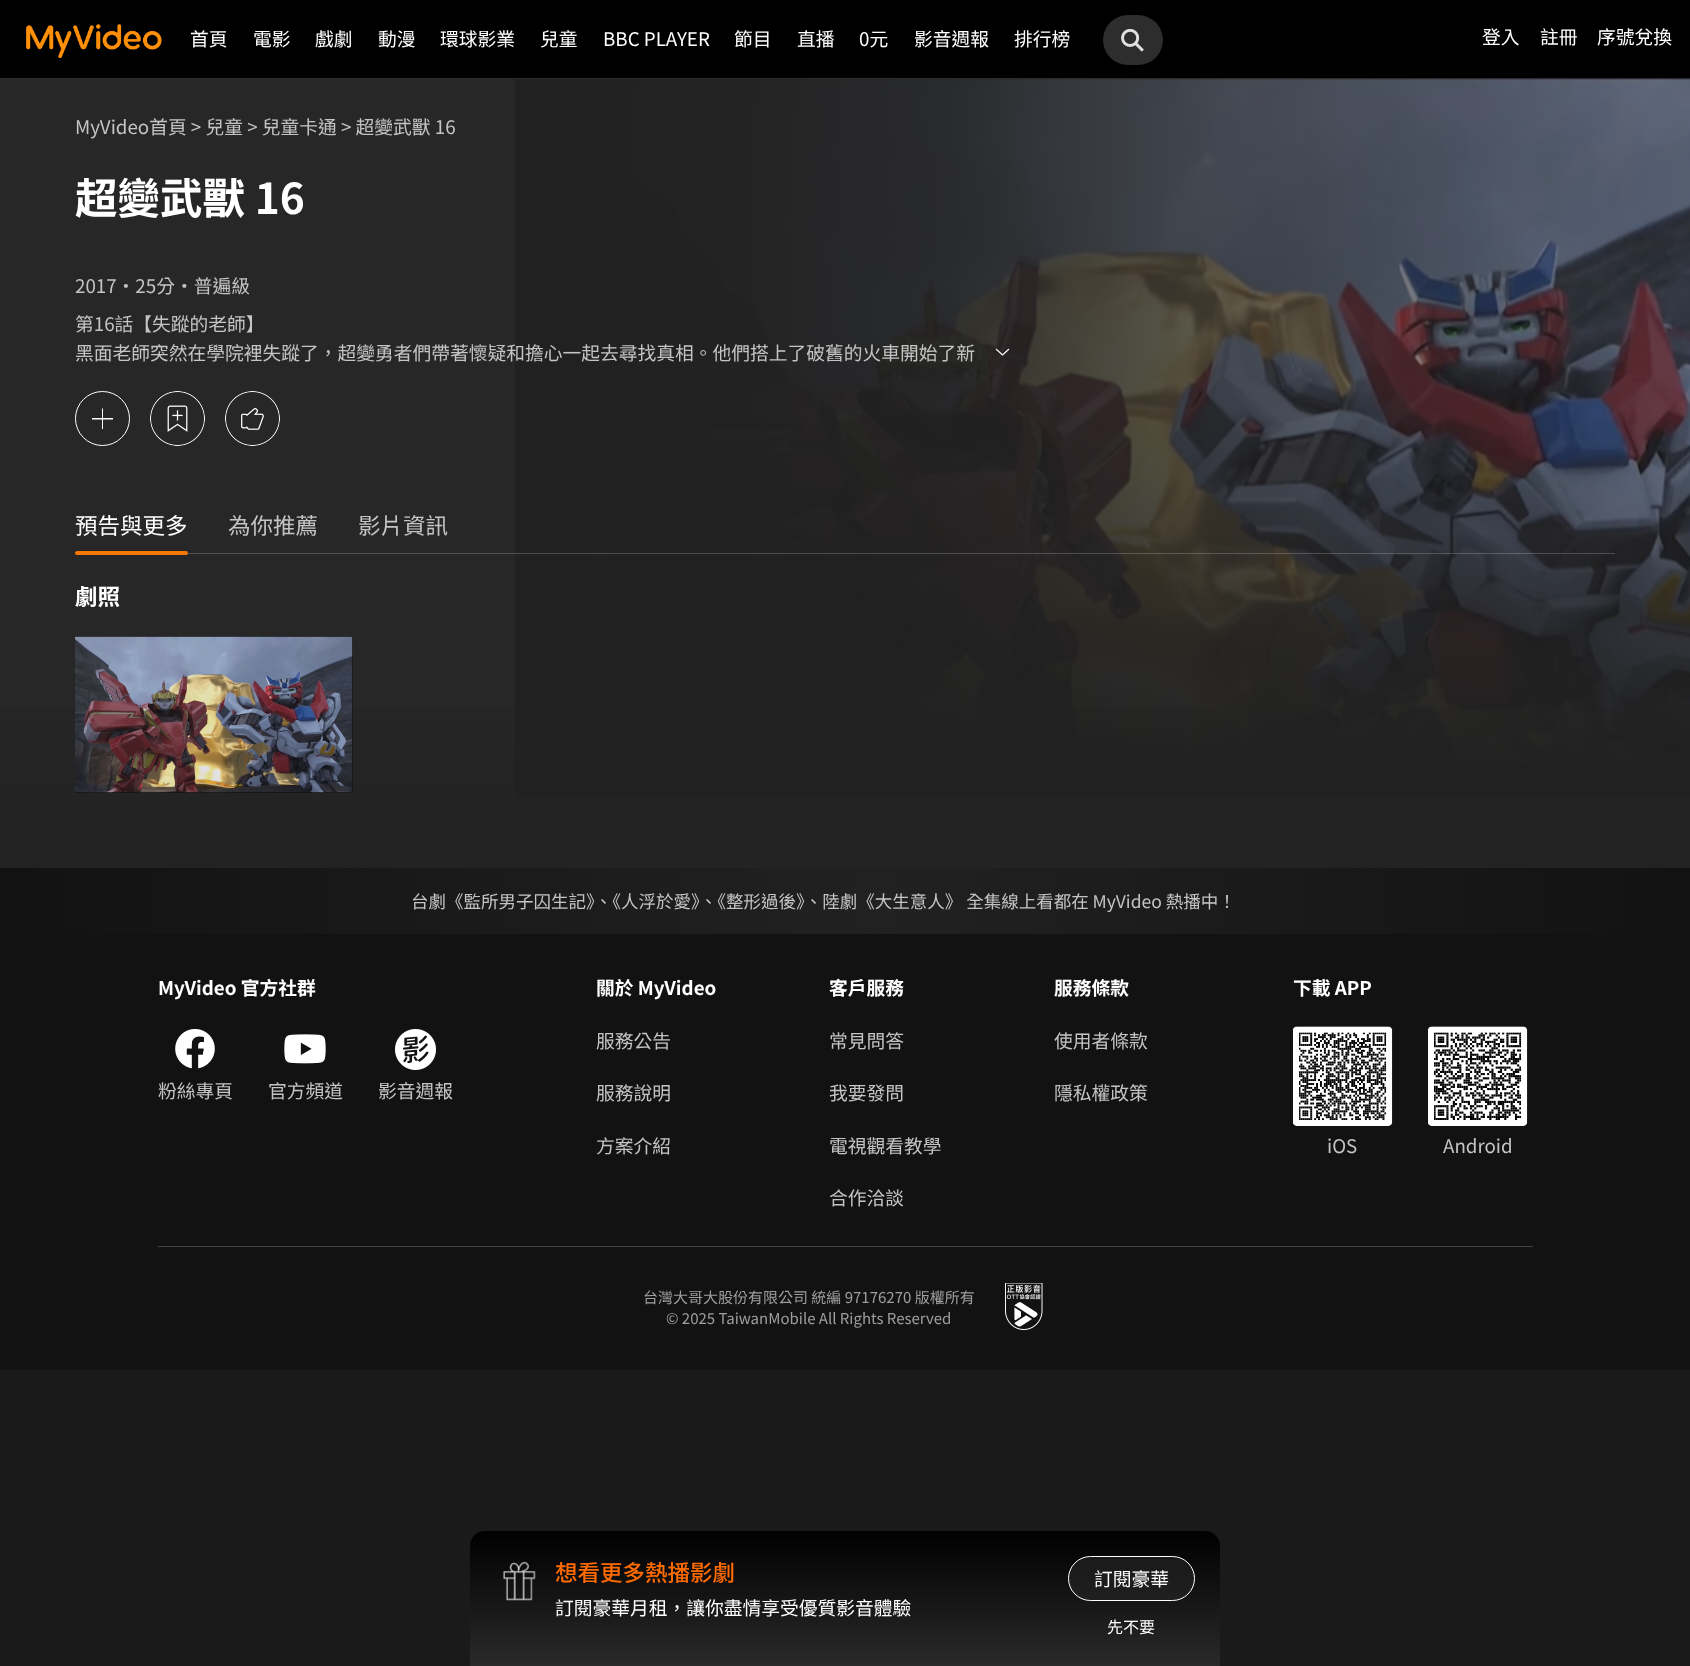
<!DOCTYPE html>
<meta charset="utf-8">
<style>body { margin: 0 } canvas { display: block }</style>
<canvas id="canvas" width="1690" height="1666"></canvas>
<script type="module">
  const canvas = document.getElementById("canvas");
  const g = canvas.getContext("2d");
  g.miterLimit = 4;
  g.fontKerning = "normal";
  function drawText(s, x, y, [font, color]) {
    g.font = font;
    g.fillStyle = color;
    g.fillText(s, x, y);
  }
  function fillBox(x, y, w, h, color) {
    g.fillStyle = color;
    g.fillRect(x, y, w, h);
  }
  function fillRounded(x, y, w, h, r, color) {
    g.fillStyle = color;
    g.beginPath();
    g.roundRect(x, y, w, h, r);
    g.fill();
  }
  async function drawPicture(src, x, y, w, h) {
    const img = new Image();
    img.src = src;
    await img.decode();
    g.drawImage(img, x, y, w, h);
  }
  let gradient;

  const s1 = ["18.75px Noto Sans TC", "#FFFFFF"];
  const s2 = ["18.75px Noto Sans TC", "#C4C4C4"];
  const s3 = ["bold 42.5px Noto Sans TC", "#FFFFFF"];
  const s4 = ["22.5px Noto Sans TC", "#FFFFFF"];
  const s5 = ["22.5px Noto Sans TC", "#C4C4C4"];
  const s6 = ["bold 22.5px Noto Sans TC", "#FFFFFF"];
  const s7 = ["17.5px Noto Sans TC", "#C4C4C4"];
  const s8 = ["bold 18.75px Noto Sans TC", "#FFFFFF"];
  const s9 = ["15px Noto Sans TC", "#9E9E9E"];
  const s10 = ["500 22.5px Noto Sans TC", "#FF6B00"];
  const s11 = ["16px Noto Sans TC", "#FFFFFF"];

  fillBox(0, 0, 1690, 1666, "#1A1A1A");
  fillBox(0, 0, 1690, 78, "#000000");
  fillBox(0, 78, 1690, 1, "#2D2D2D");
  await drawPicture("pic1.png", 26, 24, 136, 34);
  drawText("首頁", 190, 46, s1);
  drawText("電影", 253, 46, s1);
  drawText("戲劇", 315, 46, s1);
  drawText("動漫", 378, 46, s1);
  drawText("環球影業", 440, 46, s1);
  drawText("兒童", 540, 46, s1);
  drawText("BBC PLAYER", 603, 46, s1);
  drawText("節目", 734, 46, s1);
  drawText("直播", 797, 46, s1);
  drawText("0元", 859, 46, s1);
  drawText("影音週報", 914, 46, s1);
  drawText("排行榜", 1014, 46, s1);
  fillRounded(1103, 15, 60, 50, 25, "#2D2D2D");
  await drawPicture("pic2.png", 1121, 28, 23, 24);
  drawText("登入", 1482, 44, s1);
  drawText("註冊", 1540, 44, s1);
  drawText("序號兌換", 1597, 44, s1);
  fillBox(0, 79, 1690, 789, "#272727");
  await drawPicture("pic3.png", 583, 79, 1107, 717);
  gradient = g.createLinearGradient(1158, 798, 1157, -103);
  gradient.addColorStop(0.06, "rgba(33, 33, 33, 0.7)");
  gradient.addColorStop(0.43, "rgba(33, 33, 33, 0)");
  g.fillStyle = gradient;
  g.fillRect(583, 420, 1107, 376);
  gradient = g.createLinearGradient(515, 348, 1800, 347);
  gradient.addColorStop(0, "#212121");
  gradient.addColorStop(0.18, "rgba(33, 33, 33, 0.98)");
  gradient.addColorStop(0.34, "rgba(33, 33, 33, 0.92)");
  gradient.addColorStop(1, "rgba(33, 33, 33, 0.2)");
  g.fillStyle = gradient;
  g.fillRect(515, 79, 1175, 717);
  gradient = g.createLinearGradient(1158, 798, 1158, -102);
  gradient.addColorStop(0, "#212121");
  gradient.addColorStop(0.31, "rgba(33, 33, 33, 0)");
  g.fillStyle = gradient;
  g.fillRect(515, 535, 1175, 263);
  gradient = g.createLinearGradient(845, 77, 845, 1015);
  gradient.addColorStop(0.59, "rgba(33, 33, 33, 0)");
  gradient.addColorStop(0.63, "rgba(33, 33, 33, 0.1)");
  gradient.addColorStop(0.77, "rgba(33, 33, 33, 0.6)");
  gradient.addColorStop(0.91, "rgba(33, 33, 33, 0.85)");
  gradient.addColorStop(1, "#212121");
  g.fillStyle = gradient;
  g.fillRect(0, 708, 1690, 160);
  drawText("MyVideo首頁 > 兒童 > 兒童卡通 > 超變武獸 16", 75, 134, s2);
  drawText("超變武獸 16", 75, 214, s3);
  drawText("2017・25分・普遍級", 75, 293, s2);
  drawText("第16話【失蹤的老師】", 75, 331, s2);
  drawText("黑面老師突然在學院裡失蹤了，超變勇者們帶著懷疑和擔心一起去尋找真相。他們搭上了破舊的火車開始了新", 75, 360, s2);
  g.beginPath();
  g.moveTo(1009, 349);
  g.lineTo(1002.5, 355);
  g.lineTo(996, 349);
  g.strokeStyle = "#FFFFFF";
  g.lineWidth = 1.2;
  g.stroke();
  g.fillStyle = "#FFFFFF";
  g.beginPath();
  g.moveTo(92.5, 418);
  g.lineTo(92, 418);
  g.lineTo(92, 419.5);
  g.lineTo(102, 419.5);
  g.lineTo(102, 429);
  g.lineTo(103, 429);
  g.lineTo(103, 419.5);
  g.lineTo(113, 419.5);
  g.lineTo(113, 418);
  g.lineTo(103, 418);
  g.lineTo(103, 408.5);
  g.lineTo(102, 408.5);
  g.lineTo(102, 418);
  g.closePath();
  g.fill("evenodd");
  g.beginPath();
  g.arc(102.5, 418.5, 27, 0, Math.PI * 2);
  g.lineWidth = 1;
  g.stroke();
  await drawPicture("pic4.png", 150, 391, 55, 55);
  await drawPicture("pic5.png", 225, 391, 55, 55);
  fillBox(75, 553, 1540, 1, "rgba(255, 255, 255, 0.2)");
  drawText("預告與更多", 75, 534, s4);
  drawText("為你推薦", 228, 534, s5);
  drawText("影片資訊", 358, 534, s5);
  fillRounded(75, 551, 113, 4, 2, "#F57600");
  drawText("劇照", 75, 605, s6);
  fillBox(75, 636, 278, 157, "#121212");
  await drawPicture("pic6.png", 75, 636, 278, 157);
  fillBox(0, 934, 1690, 436, "#121212");
  gradient = g.createLinearGradient(0, 901, 1690, 901);
  gradient.addColorStop(0, "#121212");
  gradient.addColorStop(0.52, "#212121");
  gradient.addColorStop(1, "#121212");
  g.fillStyle = gradient;
  g.fillRect(0, 868, 1690, 66);
  drawText("台劇《監所男子囚生記》、《人浮於愛》、《整形過後》、陸劇《大生意人》 全集線上看都在 MyVideo 熱播中！", 411, 908, s7);
  drawText("MyVideo 官方社群", 158, 995, s8);
  await drawPicture("pic7.png", 175, 1028, 40, 41);
  drawText("粉絲專頁", 158, 1098, s2);
  await drawPicture("pic8.png", 284, 1034, 42, 30);
  drawText("官方頻道", 268, 1098, s2);
  await drawPicture("pic9.png", 395, 1029, 41, 41);
  drawText("影音週報", 378, 1098, s2);
  drawText("關於 MyVideo", 596, 995, s8);
  drawText("服務公告", 596, 1048, s2);
  drawText("服務說明", 596, 1100, s2);
  drawText("方案介紹", 596, 1153, s2);
  drawText("客戶服務", 829, 995, s8);
  drawText("常見問答", 829, 1048, s2);
  drawText("我要發問", 829, 1100, s2);
  drawText("電視觀看教學", 829, 1153, s2);
  drawText("合作洽談", 829, 1205, s2);
  drawText("服務條款", 1054, 995, s8);
  drawText("使用者條款", 1054, 1048, s2);
  drawText("隱私權政策", 1054, 1100, s2);
  drawText("下載 APP", 1293, 995, s8);
  await drawPicture("pic10.png", 1293, 1026, 100, 100);
  drawText("iOS", 1327, 1153, s2);
  await drawPicture("pic11.png", 1428, 1026, 100, 100);
  drawText("Android", 1443, 1153, s2);
  fillBox(158, 1246, 1375, 1, "#424242");
  drawText("台灣大哥大股份有限公司 統編 97176270 版權所有", 643, 1303, s9);
  drawText("© 2025 TaiwanMobile All Rights Reserved", 666, 1324, s9);
  await drawPicture("pic12.png", 1005, 1283, 38, 47);
  gradient = g.createLinearGradient(845, 1531, 845, 1666);
  gradient.addColorStop(0, "#000000");
  gradient.addColorStop(1, "#2A2A2A");
  g.fillStyle = gradient;
  g.beginPath();
  g.roundRect(470, 1531, 750, 135, [15, 15, 0, 0]);
  g.fill();
  await drawPicture("pic13.png", 503, 1561, 33, 40);
  drawText("想看更多熱播影劇", 555, 1581, s10);
  drawText("訂閱豪華月租，讓你盡情享受優質影音體驗", 555, 1615, s1);
  g.fillStyle = "rgba(38, 38, 38, 0.6)";
  g.beginPath();
  g.roundRect(1068.5, 1556.5, 126, 44, 22);
  g.fill();
  g.stroke();
  drawText("訂閱豪華", 1094, 1586, s1);
  drawText("先不要", 1107, 1633, s11);
</script>
